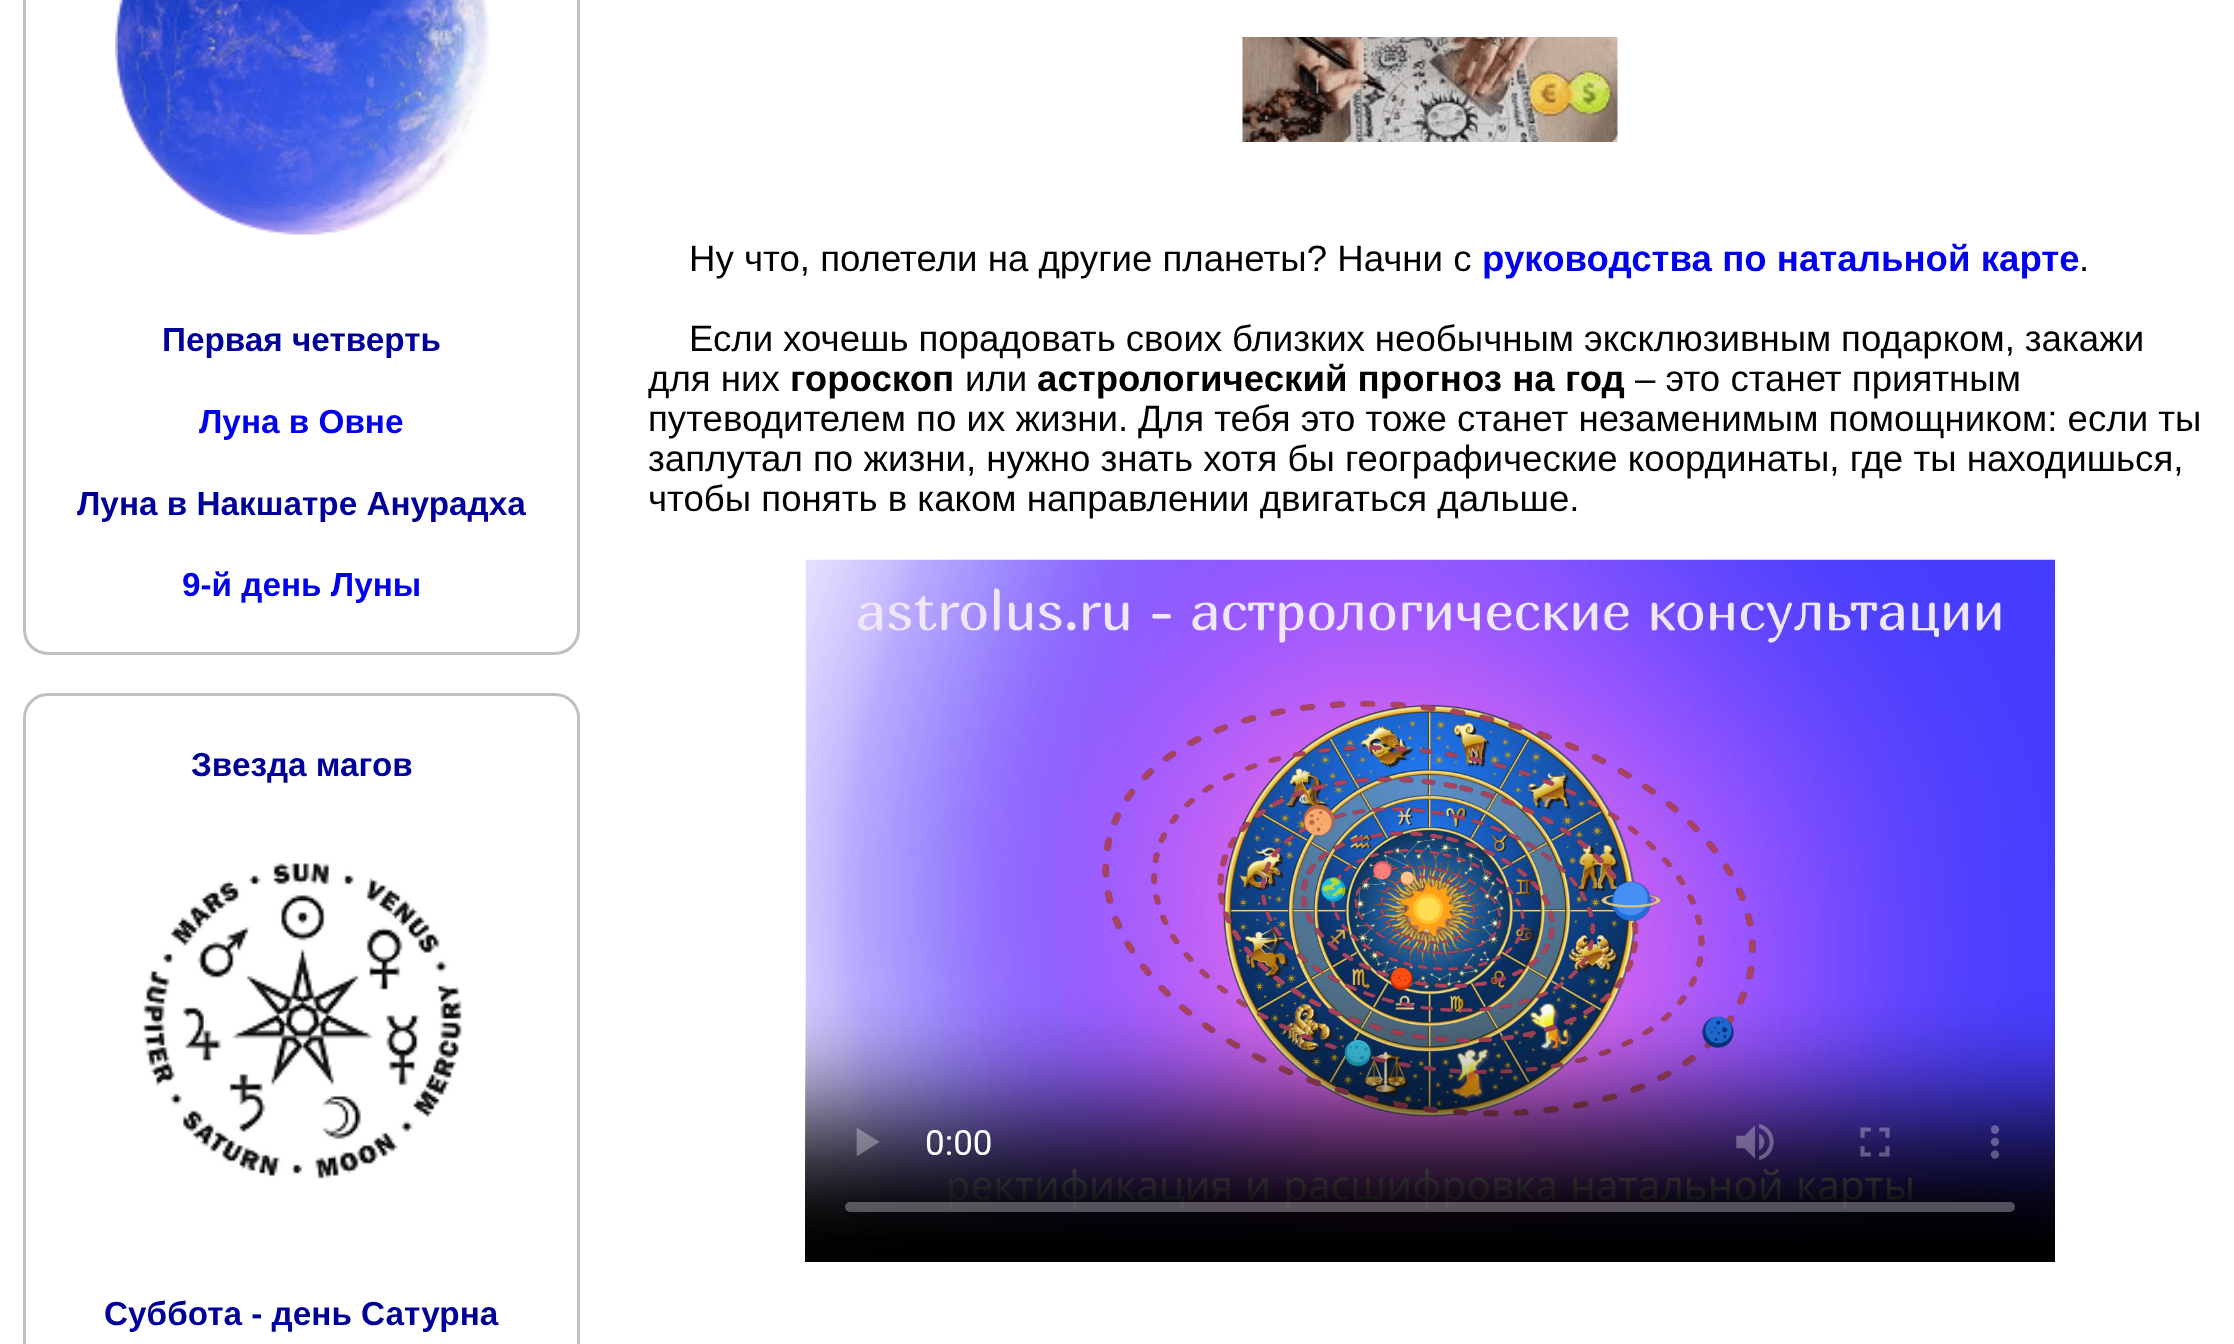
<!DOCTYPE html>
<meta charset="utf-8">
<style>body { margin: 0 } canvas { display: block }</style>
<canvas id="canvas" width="2234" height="1344"></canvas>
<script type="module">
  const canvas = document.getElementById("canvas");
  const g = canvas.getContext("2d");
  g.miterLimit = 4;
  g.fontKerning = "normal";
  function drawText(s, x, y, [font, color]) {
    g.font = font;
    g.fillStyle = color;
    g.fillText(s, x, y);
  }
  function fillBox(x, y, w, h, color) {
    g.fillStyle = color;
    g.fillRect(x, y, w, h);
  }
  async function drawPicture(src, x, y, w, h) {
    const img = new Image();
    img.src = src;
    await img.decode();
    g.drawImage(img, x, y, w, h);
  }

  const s1 = ["bold 33.3px Liberation Sans", "#000099"];
  const s2 = ["bold 33.3px Liberation Sans", "#0000EE"];
  const s3 = ["36.65px Liberation Sans", "#000000"];
  const s4 = ["bold 36.65px Liberation Sans", "#0000EE"];
  const s5 = ["bold 36.65px Liberation Sans", "#000000"];

  fillBox(0, 0, 2234, 1344, "#FFFFFF");
  g.beginPath();
  g.roundRect(24.5, -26.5, 554, 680, 23.5);
  g.strokeStyle = "#C0C0C0";
  g.lineWidth = 3;
  g.stroke();
  await drawPicture("pic1.png", 115, 0, 375, 235);
  drawText("Первая четверть", 162, 351, s1);
  drawText("Луна в Овне", 199, 433, s2);
  drawText("Луна в Накшатре Анурадха", 77, 515, s1);
  drawText("9-й день Луны", 182, 596, s2);
  g.beginPath();
  g.roundRect(24.5, 694.5, 554, 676, 23.5);
  g.stroke();
  drawText("Звезда магов", 191, 776, s1);
  await drawPicture("pic2.png", 143, 862, 320, 318);
  drawText("Cуббота - день Сатурна", 104, 1325, s1);
  await drawPicture("pic3.png", 1242, 37, 376, 105);
  drawText("Ну что, полетели на другие планеты? Начни с", 689, 271, s3);
  drawText("руководства по натальной карте", 1482, 271, s4);
  drawText(".", 2079, 271, s3);
  g.wordSpacing = "-0.25px";
  drawText("Если хочешь порадовать своих близких необычным эксклюзивным подарком, закажи", 689, 351, s3);
  g.wordSpacing = "0px";
  drawText("для них", 648, 391, s3);
  drawText("гороскоп", 790, 391, s5);
  drawText("или", 965, 391, s3);
  drawText("астрологический прогноз на год", 1037, 391, s5);
  drawText("– это станет приятным", 1635, 391, s3);
  drawText("путеводителем по их жизни.", 648, 431, s3);
  drawText("Для тебя это тоже станет незаменимым помощником: если ты", 1138, 431, s3);
  drawText("заплутал по жизни, нужно знать хотя бы географические координаты, где ты находишься,", 648, 471, s3);
  drawText("чтобы понять в каком направлении двигаться дальше.", 648, 511, s3);
  await drawPicture("pic4.png", 805, 559, 1250, 703);
</script>
